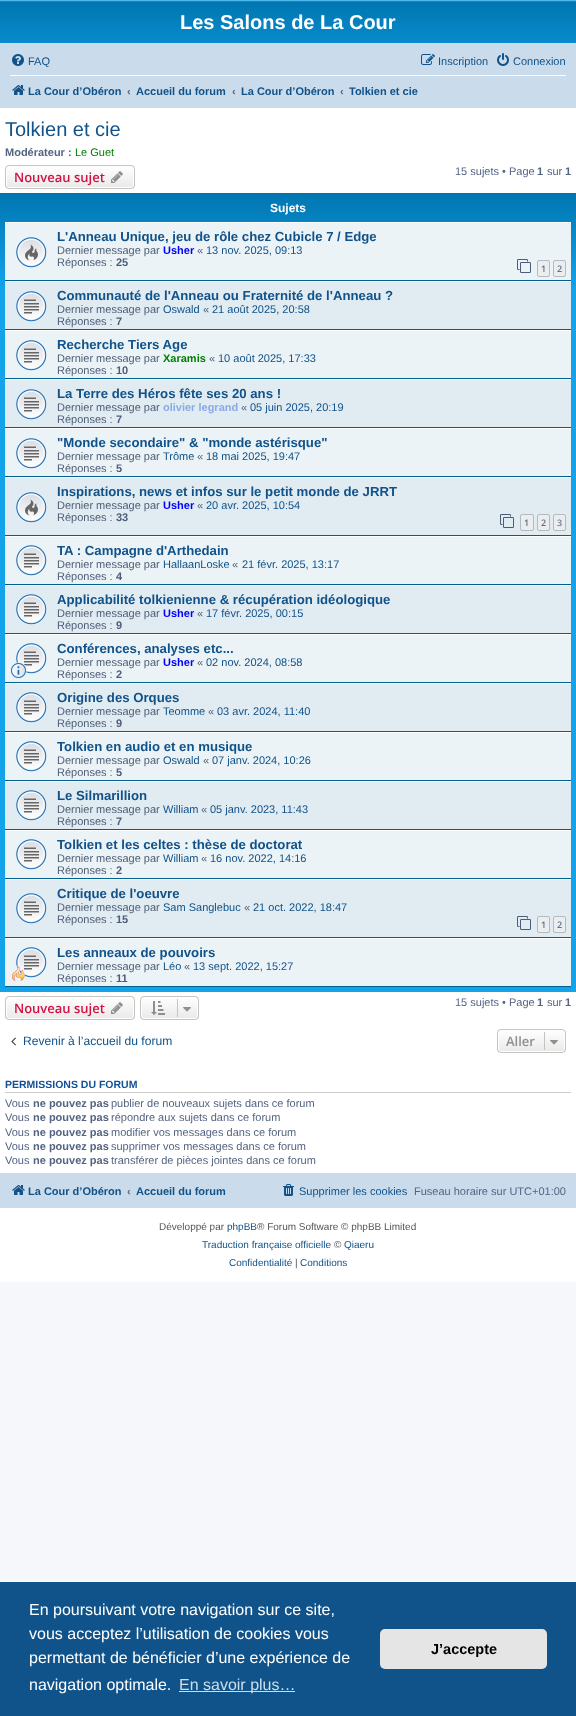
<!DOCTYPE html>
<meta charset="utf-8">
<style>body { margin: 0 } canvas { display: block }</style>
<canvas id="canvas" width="576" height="1716"></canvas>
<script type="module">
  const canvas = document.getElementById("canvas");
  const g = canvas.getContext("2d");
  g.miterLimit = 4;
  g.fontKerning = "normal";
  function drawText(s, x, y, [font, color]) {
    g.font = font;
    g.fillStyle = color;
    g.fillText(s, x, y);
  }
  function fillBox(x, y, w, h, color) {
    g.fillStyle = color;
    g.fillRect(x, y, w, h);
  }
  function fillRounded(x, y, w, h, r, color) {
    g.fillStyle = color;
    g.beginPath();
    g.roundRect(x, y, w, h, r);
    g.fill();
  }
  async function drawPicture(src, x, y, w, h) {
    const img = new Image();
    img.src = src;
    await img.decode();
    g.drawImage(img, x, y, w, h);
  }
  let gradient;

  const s1 = ["bold 20px Liberation Sans", "#FFFFFF"];
  const s2 = ["11px Liberation Sans", "#105289"];
  const s3 = ["bold 11px Liberation Sans", "#105289"];
  const s4 = ["bold 11px Liberation Sans", "#536482"];
  const s5 = ["20px Liberation Sans", "#105289"];
  const s6 = ["11px Liberation Sans", "#008000"];
  const s7 = ["600 13px Open Sans", "#D31141"];
  const s8 = ["11px Liberation Sans", "#536482"];
  const s9 = ["bold 12px Liberation Sans", "#FFFFFF"];
  const s10 = ["bold 13.2px Liberation Sans", "#105289"];
  const s11 = ["11px Liberation Sans", "#4C5D77"];
  const s12 = ["bold 11px Liberation Sans", "#0000FF"];
  const s13 = ["bold 11px Liberation Sans", "#4C5D77"];
  const s14 = ["600 9px Open Sans", "#5C758C"];
  const s15 = ["bold 11px Liberation Sans", "#008000"];
  const s16 = ["bold 11px Liberation Sans", "#89AAE6"];
  const s17 = ["12.1px Liberation Sans", "#105289"];
  const s18 = ["600 13px Open Sans", "#8F8F8F"];
  const s19 = ["bold 10.5px Liberation Sans", "#115098"];
  const s20 = ["10px Liberation Sans", "#555555"];
  const s21 = ["10px Liberation Sans", "#105289"];
  const s22 = ["16px Liberation Sans", "#FFFFFF"];
  const s23 = ["16px Liberation Sans", "#CFDDE8"];
  const s24 = ["bold 14.5px Liberation Sans", "#000000"];

  fillBox(0, 0, 576, 1716, "#F5F7FA");
  fillBox(0, 108, 576, 1174, "#FFFFFF");
  gradient = g.createLinearGradient(288, 0, 288, 92);
  gradient.addColorStop(0, "#6ACEFF");
  gradient.addColorStop(0.02, "#0076B1");
  gradient.addColorStop(1, "#12A3EB");
  g.fillStyle = gradient;
  g.fillRect(0, 0, 576, 43);
  drawText("Les Salons de La Cour", 180, 29, s1);
  fillBox(0, 43, 576, 65, "#CADCEB");
  await drawPicture("pic1.png", 12, 54, 12, 12);
  drawText("FAQ", 28, 65, s2);
  await drawPicture("pic2.png", 421, 54, 14, 11);
  drawText("Inscription", 438, 65, s2);
  await drawPicture("pic3.png", 497, 53, 12, 13);
  drawText("Connexion", 513, 65, s2);
  fillBox(10, 75, 556, 1, "#FFFFFF");
  await drawPicture("pic4.png", 12, 85, 13, 10);
  drawText("La Cour d’Obéron", 28, 95, s3);
  drawText("‹", 127, 95, s4);
  drawText("Accueil du forum", 136, 95, s3);
  drawText("‹", 232, 95, s4);
  drawText("La Cour d’Obéron", 241, 95, s3);
  drawText("‹", 340, 95, s4);
  drawText("Tolkien et cie", 349, 95, s3);
  drawText("Tolkien et cie", 5, 136, s5);
  drawText("Modérateur :", 5, 156, s4);
  drawText("Le Guet", 75, 156, s6);
  g.save();
  g.beginPath();
  g.roundRect(5, 165, 130, 24, 4);
  g.clip();
  gradient = g.createLinearGradient(70, 166, 70, 188);
  gradient.addColorStop(0, "#FFFFFF");
  gradient.addColorStop(1, "#E9E9E9");
  g.fillStyle = gradient;
  g.fillRect(5, 166, 130, 22);
  g.restore();
  g.beginPath();
  g.roundRect(6.5, 166.5, 127, 21, 2.5);
  g.strokeStyle = "#FFFFFF";
  g.stroke();
  g.beginPath();
  g.roundRect(5.5, 165.5, 129, 23, 3.5);
  g.strokeStyle = "#C7C3BF";
  g.stroke();
  drawText("Nouveau sujet", 14, 182, s7);
  await drawPicture("pic5.png", 111, 171, 12, 12);
  drawText("15 sujets • Page", 455, 175, s8);
  drawText("1", 537, 175, s4);
  drawText("sur", 547, 175, s8);
  drawText("1", 565, 175, s4);
  gradient = g.createLinearGradient(288, 193, 288, 992);
  gradient.addColorStop(0, "#6ACEFF");
  gradient.addColorStop(0, "#0076B1");
  gradient.addColorStop(0.12, "#12A3EB");
  gradient.addColorStop(1, "#12A3EB");
  g.fillStyle = gradient;
  g.fillRect(0, 193, 576, 799);
  drawText("Sujets", 270, 212, s9);
  fillBox(5, 223, 566, 57, "#ECF3F7");
  fillBox(5, 222, 566, 1, "#FFFFFF");
  fillBox(5, 280, 566, 1, "#00608F");
  await drawPicture("pic6.png", 16, 237, 31, 31);
  drawText("L'Anneau Unique, jeu de rôle chez Cubicle 7 / Edge", 57, 241, s10);
  drawText("Dernier message par", 57, 254, s11);
  drawText("Usher", 163, 254, s12);
  drawText("«", 197, 254, s11);
  drawText("13 nov. 2025, 09:13", 206, 254, s2);
  drawText("Réponses :", 57, 266, s11);
  drawText("25", 116, 266, s13);
  await drawPicture("pic7.png", 517, 259, 14, 14);
  g.fillStyle = "#ECEDEE";
  g.beginPath();
  g.roundRect(537.5, 260.5, 12, 16, 1.5);
  g.fill();
  g.strokeStyle = "#B4BAC0";
  g.stroke();
  drawText("1", 541, 272, s14);
  g.fillStyle = "#ECEDEE";
  g.beginPath();
  g.roundRect(553.5, 260.5, 12, 16, 1.5);
  g.fill();
  g.stroke();
  drawText("2", 557, 272, s14);
  fillBox(5, 282, 566, 47, "#E1EBF2");
  fillBox(5, 281, 566, 1, "#FFFFFF");
  fillBox(5, 329, 566, 1, "#00608F");
  await drawPicture("pic8.png", 16, 291, 31, 31);
  drawText("Communauté de l'Anneau ou Fraternité de l'Anneau ?", 57, 300, s10);
  drawText("Dernier message par", 57, 313, s11);
  drawText("Oswald", 163, 313, s2);
  drawText("«", 203, 313, s11);
  drawText("21 août 2025, 20:58", 212, 313, s2);
  drawText("Réponses :", 57, 325, s11);
  drawText("7", 116, 325, s13);
  fillBox(5, 331, 566, 47, "#ECF3F7");
  fillBox(5, 330, 566, 1, "#FFFFFF");
  fillBox(5, 378, 566, 1, "#00608F");
  await drawPicture("pic9.png", 16, 340, 31, 31);
  drawText("Recherche Tiers Age", 57, 349, s10);
  drawText("Dernier message par", 57, 362, s11);
  drawText("Xaramis", 163, 362, s15);
  drawText("«", 209, 362, s11);
  drawText("10 août 2025, 17:33", 218, 362, s2);
  drawText("Réponses :", 57, 374, s11);
  drawText("10", 116, 374, s13);
  fillBox(5, 380, 566, 47, "#E1EBF2");
  fillBox(5, 379, 566, 1, "#FFFFFF");
  fillBox(5, 427, 566, 1, "#00608F");
  await drawPicture("pic8.png", 16, 389, 31, 31);
  drawText("La Terre des Héros fête ses 20 ans !", 57, 398, s10);
  drawText("Dernier message par", 57, 411, s11);
  drawText("olivier legrand", 163, 411, s16);
  drawText("«", 241, 411, s11);
  drawText("05 juin 2025, 20:19", 250, 411, s2);
  drawText("Réponses :", 57, 423, s11);
  drawText("7", 116, 423, s13);
  fillBox(5, 429, 566, 47, "#ECF3F7");
  fillBox(5, 428, 566, 1, "#FFFFFF");
  fillBox(5, 476, 566, 1, "#00608F");
  await drawPicture("pic9.png", 16, 438, 31, 31);
  drawText("\"Monde secondaire\" & \"monde astérisque\"", 57, 447, s10);
  drawText("Dernier message par", 57, 460, s11);
  drawText("Trôme", 163, 460, s2);
  drawText("«", 197, 460, s11);
  drawText("18 mai 2025, 19:47", 206, 460, s2);
  drawText("Réponses :", 57, 472, s11);
  drawText("5", 116, 472, s13);
  fillBox(5, 478, 566, 57, "#E1EBF2");
  fillBox(5, 477, 566, 1, "#FFFFFF");
  fillBox(5, 535, 566, 1, "#00608F");
  await drawPicture("pic10.png", 16, 492, 31, 31);
  drawText("Inspirations, news et infos sur le petit monde de JRRT", 57, 496, s10);
  drawText("Dernier message par", 57, 509, s11);
  drawText("Usher", 163, 509, s12);
  drawText("«", 197, 509, s11);
  drawText("20 avr. 2025, 10:54", 206, 509, s2);
  drawText("Réponses :", 57, 521, s11);
  drawText("33", 116, 521, s13);
  await drawPicture("pic11.png", 500, 514, 14, 14);
  g.fillStyle = "#ECEDEE";
  g.beginPath();
  g.roundRect(520.5, 514.5, 13, 16, 1.5);
  g.fill();
  g.stroke();
  drawText("1", 524, 526, s14);
  g.fillStyle = "#ECEDEE";
  g.beginPath();
  g.roundRect(537.5, 514.5, 12, 16, 1.5);
  g.fill();
  g.stroke();
  drawText("2", 541, 526, s14);
  g.fillStyle = "#ECEDEE";
  g.beginPath();
  g.roundRect(553.5, 514.5, 12, 16, 1.5);
  g.fill();
  g.stroke();
  drawText("3", 557, 526, s14);
  fillBox(5, 537, 566, 47, "#ECF3F7");
  fillBox(5, 536, 566, 1, "#FFFFFF");
  fillBox(5, 584, 566, 1, "#00608F");
  await drawPicture("pic9.png", 16, 545, 31, 31);
  drawText("TA : Campagne d'Arthedain", 57, 555, s10);
  drawText("Dernier message par", 57, 568, s11);
  drawText("HallaanLoske", 163, 568, s2);
  drawText("«", 232, 568, s11);
  drawText("21 févr. 2025, 13:17", 242, 568, s2);
  drawText("Réponses :", 57, 580, s11);
  drawText("4", 116, 580, s13);
  fillBox(5, 586, 566, 47, "#E1EBF2");
  fillBox(5, 585, 566, 1, "#FFFFFF");
  fillBox(5, 633, 566, 1, "#00608F");
  await drawPicture("pic8.png", 16, 594, 31, 31);
  drawText("Applicabilité tolkienienne & récupération idéologique", 57, 604, s10);
  drawText("Dernier message par", 57, 617, s11);
  drawText("Usher", 163, 617, s12);
  drawText("«", 197, 617, s11);
  drawText("17 févr. 2025, 00:15", 206, 617, s2);
  drawText("Réponses :", 57, 629, s11);
  drawText("9", 116, 629, s13);
  fillBox(5, 635, 566, 47, "#ECF3F7");
  fillBox(5, 634, 566, 1, "#FFFFFF");
  fillBox(5, 682, 566, 1, "#00608F");
  await drawPicture("pic9.png", 16, 643, 31, 31);
  await drawPicture("pic12.png", 10, 662, 17, 17);
  drawText("Conférences, analyses etc...", 57, 653, s10);
  drawText("Dernier message par", 57, 666, s11);
  drawText("Usher", 163, 666, s12);
  drawText("«", 197, 666, s11);
  drawText("02 nov. 2024, 08:58", 206, 666, s2);
  drawText("Réponses :", 57, 678, s11);
  drawText("2", 116, 678, s13);
  fillBox(5, 684, 566, 47, "#E1EBF2");
  fillBox(5, 683, 566, 1, "#FFFFFF");
  fillBox(5, 731, 566, 1, "#00608F");
  await drawPicture("pic8.png", 16, 692, 31, 31);
  drawText("Origine des Orques", 57, 702, s10);
  drawText("Dernier message par", 57, 715, s11);
  drawText("Teomme", 163, 715, s2);
  drawText("«", 208, 715, s11);
  drawText("03 avr. 2024, 11:40", 217, 715, s2);
  drawText("Réponses :", 57, 727, s11);
  drawText("9", 116, 727, s13);
  fillBox(5, 733, 566, 47, "#ECF3F7");
  fillBox(5, 732, 566, 1, "#FFFFFF");
  fillBox(5, 780, 566, 1, "#00608F");
  await drawPicture("pic9.png", 16, 741, 31, 31);
  drawText("Tolkien en audio et en musique", 57, 751, s10);
  drawText("Dernier message par", 57, 764, s11);
  drawText("Oswald", 163, 764, s2);
  drawText("«", 203, 764, s11);
  drawText("07 janv. 2024, 10:26", 212, 764, s2);
  drawText("Réponses :", 57, 776, s11);
  drawText("5", 116, 776, s13);
  fillBox(5, 782, 566, 47, "#E1EBF2");
  fillBox(5, 781, 566, 1, "#FFFFFF");
  fillBox(5, 829, 566, 1, "#00608F");
  await drawPicture("pic8.png", 16, 790, 31, 31);
  drawText("Le Silmarillion", 57, 800, s10);
  drawText("Dernier message par", 57, 813, s11);
  drawText("William", 163, 813, s2);
  drawText("«", 201, 813, s11);
  drawText("05 janv. 2023, 11:43", 210, 813, s2);
  drawText("Réponses :", 57, 825, s11);
  drawText("7", 116, 825, s13);
  fillBox(5, 831, 566, 47, "#ECF3F7");
  fillBox(5, 830, 566, 1, "#FFFFFF");
  fillBox(5, 878, 566, 1, "#00608F");
  await drawPicture("pic9.png", 16, 839, 31, 31);
  drawText("Tolkien et les celtes : thèse de doctorat", 57, 849, s10);
  drawText("Dernier message par", 57, 862, s11);
  drawText("William", 163, 862, s2);
  drawText("«", 201, 862, s11);
  drawText("16 nov. 2022, 14:16", 210, 862, s2);
  drawText("Réponses :", 57, 874, s11);
  drawText("2", 116, 874, s13);
  fillBox(5, 880, 566, 57, "#E1EBF2");
  fillBox(5, 879, 566, 1, "#FFFFFF");
  fillBox(5, 937, 566, 1, "#00608F");
  await drawPicture("pic8.png", 16, 893, 31, 31);
  drawText("Critique de l'oeuvre", 57, 898, s10);
  drawText("Dernier message par", 57, 911, s11);
  drawText("Sam Sanglebuc", 163, 911, s2);
  drawText("«", 244, 911, s11);
  drawText("21 oct. 2022, 18:47", 253, 911, s2);
  drawText("Réponses :", 57, 923, s11);
  drawText("15", 116, 923, s13);
  await drawPicture("pic11.png", 517, 916, 14, 14);
  g.fillStyle = "#ECEDEE";
  g.beginPath();
  g.roundRect(537.5, 916.5, 12, 16, 1.5);
  g.fill();
  g.stroke();
  drawText("1", 541, 928, s14);
  g.fillStyle = "#ECEDEE";
  g.beginPath();
  g.roundRect(553.5, 916.5, 12, 16, 1.5);
  g.fill();
  g.stroke();
  drawText("2", 557, 928, s14);
  fillBox(5, 939, 566, 47, "#ECF3F7");
  fillBox(5, 938, 566, 1, "#FFFFFF");
  fillBox(5, 986, 566, 1, "#00608F");
  await drawPicture("pic9.png", 16, 947, 31, 31);
  await drawPicture("pic13.png", 11, 965, 14, 17);
  drawText("Les anneaux de pouvoirs", 57, 957, s10);
  drawText("Dernier message par", 57, 970, s11);
  drawText("Léo", 163, 970, s2);
  drawText("«", 184, 970, s11);
  drawText("13 sept. 2022, 15:27", 193, 970, s2);
  drawText("Réponses :", 57, 982, s11);
  drawText("11", 116, 982, s13);
  g.save();
  g.beginPath();
  g.roundRect(5, 996, 130, 24, 4);
  g.clip();
  gradient = g.createLinearGradient(70, 997, 70, 1019);
  gradient.addColorStop(0, "#FFFFFF");
  gradient.addColorStop(1, "#E9E9E9");
  g.fillStyle = gradient;
  g.fillRect(5, 997, 130, 22);
  g.restore();
  g.beginPath();
  g.roundRect(6.5, 997.5, 127, 21, 2.5);
  g.strokeStyle = "#FFFFFF";
  g.stroke();
  g.beginPath();
  g.roundRect(5.5, 996.5, 129, 23, 3.5);
  g.strokeStyle = "#C7C3BF";
  g.stroke();
  drawText("Nouveau sujet", 14, 1013, s7);
  await drawPicture("pic5.png", 111, 1002, 12, 12);
  g.save();
  g.beginPath();
  g.roundRect(140, 996, 59, 24, 4);
  g.clip();
  gradient = g.createLinearGradient(170, 997, 170, 1019);
  gradient.addColorStop(0, "#FFFFFF");
  gradient.addColorStop(1, "#E9E9E9");
  g.fillStyle = gradient;
  g.fillRect(140, 997, 59, 22);
  g.restore();
  g.beginPath();
  g.roundRect(141.5, 997.5, 56, 21, 2.5);
  g.strokeStyle = "#FFFFFF";
  g.stroke();
  g.beginPath();
  g.roundRect(140.5, 996.5, 58, 23, 3.5);
  g.strokeStyle = "#C7C3BF";
  g.stroke();
  await drawPicture("pic14.png", 151, 1001, 14, 14);
  fillBox(177, 999, 1, 18, "#C7C3BF");
  await drawPicture("pic15.png", 183, 1007, 8, 5);
  drawText("15 sujets • Page", 455, 1006, s8);
  drawText("1", 537, 1006, s4);
  drawText("sur", 547, 1006, s8);
  drawText("1", 565, 1006, s4);
  await drawPicture("pic16.png", 11, 1037, 5, 9);
  drawText("Revenir à l’accueil du forum", 23, 1045, s17);
  g.save();
  g.beginPath();
  g.roundRect(497, 1029, 69, 24, 4);
  g.clip();
  gradient = g.createLinearGradient(532, 1030, 532, 1052);
  gradient.addColorStop(0, "#FFFFFF");
  gradient.addColorStop(1, "#E9E9E9");
  g.fillStyle = gradient;
  g.fillRect(497, 1030, 69, 22);
  g.restore();
  g.beginPath();
  g.roundRect(498.5, 1030.5, 66, 21, 2.5);
  g.strokeStyle = "#FFFFFF";
  g.stroke();
  g.beginPath();
  g.roundRect(497.5, 1029.5, 68, 23, 3.5);
  g.strokeStyle = "#C7C3BF";
  g.stroke();
  drawText("Aller", 506, 1046, s18);
  fillBox(544, 1032, 1, 18, "#C7C3BF");
  await drawPicture("pic15.png", 550, 1040, 8, 5);
  fillBox(5, 1092, 566, 1, "#CCCCCC");
  drawText("PERMISSIONS DU FORUM", 5, 1088, s19);
  drawText("Vous", 5, 1107, s8);
  drawText("ne pouvez pas", 33, 1107, s4);
  drawText("publier de nouveaux sujets dans ce forum", 111, 1107, s8);
  drawText("Vous", 5, 1121, s8);
  drawText("ne pouvez pas", 33, 1121, s4);
  drawText("répondre aux sujets dans ce forum", 111, 1121, s8);
  drawText("Vous", 5, 1136, s8);
  drawText("ne pouvez pas", 33, 1136, s4);
  drawText("modifier vos messages dans ce forum", 111, 1136, s8);
  drawText("Vous", 5, 1150, s8);
  drawText("ne pouvez pas", 33, 1150, s4);
  drawText("supprimer vos messages dans ce forum", 111, 1150, s8);
  drawText("Vous", 5, 1164, s8);
  drawText("ne pouvez pas", 33, 1164, s4);
  drawText("transférer de pièces jointes dans ce forum", 111, 1164, s8);
  fillBox(0, 1173, 576, 35, "#CADCEB");
  await drawPicture("pic4.png", 12, 1185, 13, 10);
  drawText("La Cour d’Obéron", 28, 1195, s3);
  drawText("‹", 127, 1195, s4);
  drawText("Accueil du forum", 136, 1195, s3);
  await drawPicture("pic17.png", 283, 1184, 11, 12);
  drawText("Supprimer les cookies", 299, 1195, s2);
  drawText("Fuseau horaire sur UTC+01:00", 414, 1195, s8);
  drawText("Développé par", 159, 1230, s20);
  drawText("phpBB", 227, 1230, s21);
  drawText("® Forum Software © phpBB Limited", 257, 1230, s20);
  drawText("Traduction française officielle", 202, 1248, s21);
  drawText("©", 334, 1248, s20);
  drawText("Qiaeru", 344, 1248, s21);
  drawText("Confidentialité", 229, 1266, s21);
  drawText("|", 295, 1266, s20);
  drawText("Conditions", 300, 1266, s21);
  fillBox(0, 1582, 576, 134, "#0F538A");
  drawText("En poursuivant votre navigation sur ce site,", 29, 1615, s22);
  drawText("vous acceptez l’utilisation de cookies vous", 29, 1639, s22);
  drawText("permettant de bénéficier d’une expérience de", 29, 1663, s22);
  drawText("navigation optimale.", 29, 1690, s22);
  fillBox(179, 1691, 116, 1, "#CFDDE8");
  drawText("En savoir plus…", 179, 1690, s23);
  fillRounded(380, 1629, 167, 40, 5, "#E5E5E5");
  drawText("J’accepte", 431, 1654, s24);
</script>
